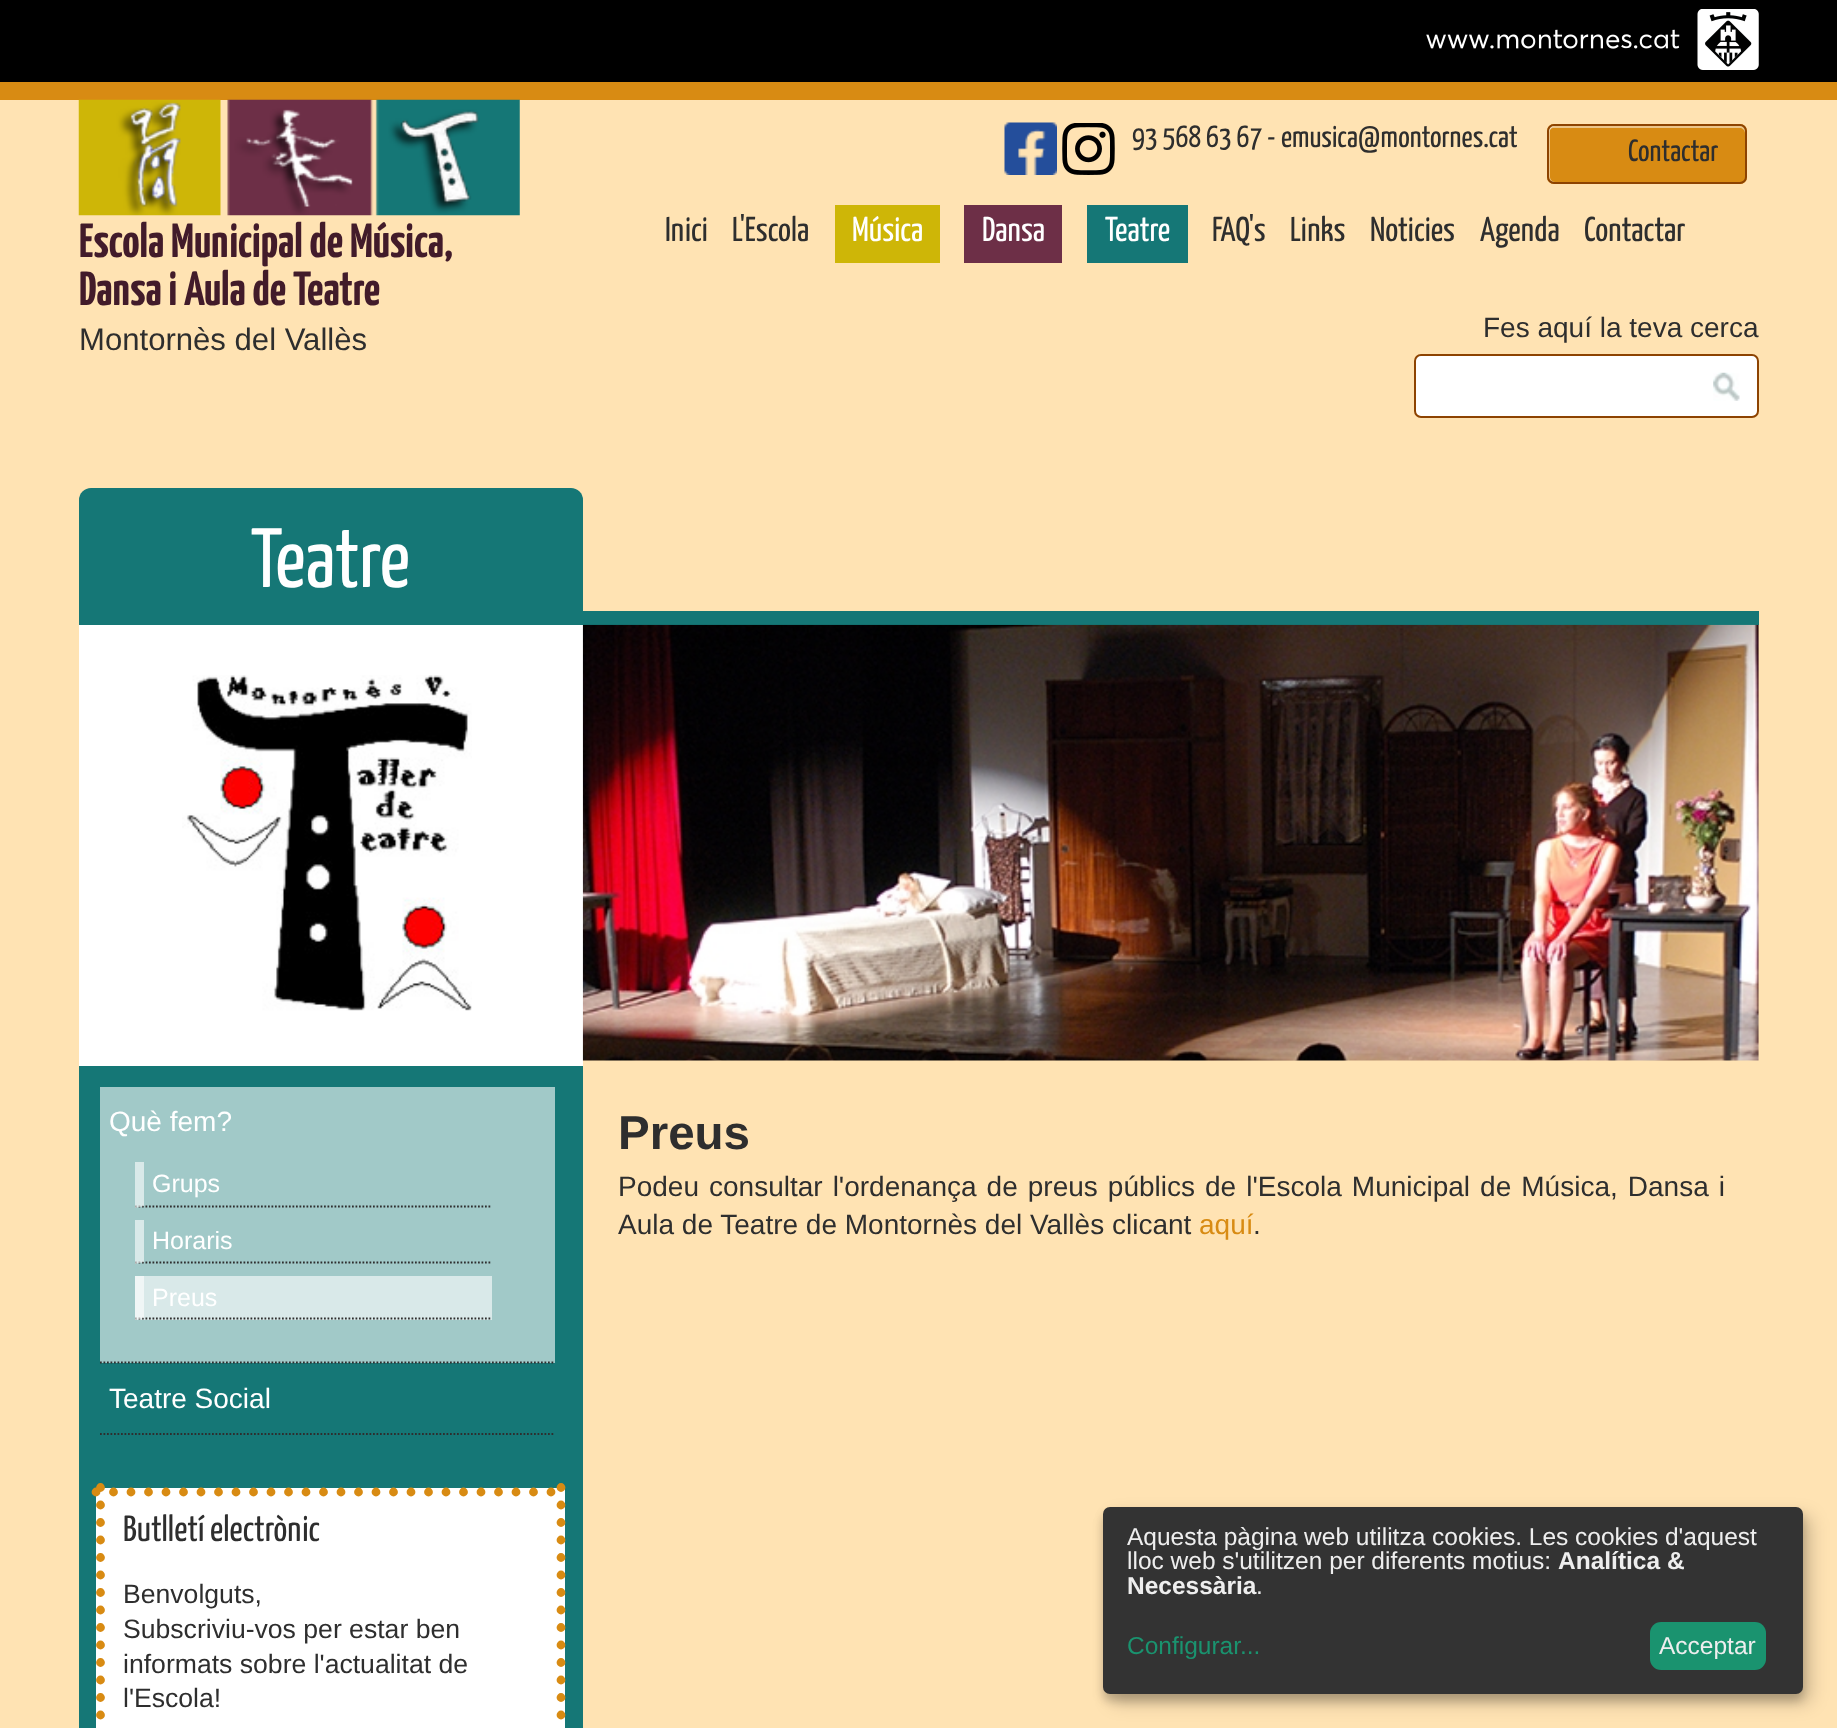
<!DOCTYPE html>
<meta charset="utf-8">
<style>body { margin: 0 } canvas { display: block }</style>
<canvas id="canvas" width="1837" height="1728"></canvas>
<script type="module">
  const canvas = document.getElementById("canvas");
  const g = canvas.getContext("2d");
  g.miterLimit = 4;
  g.fontKerning = "normal";
  function drawText(s, x, y, [font, color]) {
    g.font = font;
    g.fillStyle = color;
    g.fillText(s, x, y);
  }
  function fillBox(x, y, w, h, color) {
    g.fillStyle = color;
    g.fillRect(x, y, w, h);
  }
  function fillRounded(x, y, w, h, r, color) {
    g.fillStyle = color;
    g.beginPath();
    g.roundRect(x, y, w, h, r);
    g.fill();
  }
  async function drawPicture(src, x, y, w, h) {
    const img = new Image();
    img.src = src;
    await img.decode();
    g.drawImage(img, x, y, w, h);
  }

  const s1 = ["bold 48px Yanone Kaffeesatz", "#421B2A"];
  const s2 = ["31.1px Liberation Sans", "#2E2E2E"];
  const s3 = ["30.75px Yanone Kaffeesatz", "#2E2E2E"];
  const s4 = ["34.5px Yanone Kaffeesatz", "#2E2E2E"];
  const s5 = ["34.5px Yanone Kaffeesatz", "#FFFFFF"];
  const s6 = ["28px Liberation Sans", "#2E2E2E"];
  const s7 = ["84px Yanone Kaffeesatz", "#FFFFFF"];
  const s8 = ["28px Liberation Sans", "#FFFFFF"];
  const s9 = ["25px Liberation Sans", "#FFFFFF"];
  const s10 = ["36.5px Yanone Kaffeesatz", "#2E2E2E"];
  const s11 = ["26.6px Liberation Sans", "#2E2E2E"];
  const s12 = ["bold 47.5px Liberation Sans", "#2E2E2E"];
  const s13 = ["28px Liberation Sans", "#D88B13"];
  const s14 = ["24.5px Liberation Sans", "#EEEEEE"];
  const s15 = ["bold 24.5px Liberation Sans", "#EEEEEE"];
  const s16 = ["24.5px Liberation Sans", "#1A936F"];

  fillBox(0, 0, 1837, 1728, "#FFE3B3");
  fillBox(0, 0, 1837, 82, "#000000");
  fillBox(0, 82, 1837, 18, "#D88B13");
  await drawPicture("pic1.png", 1426, 9, 333, 61);
  await drawPicture("pic2.png", 78, 99, 442, 117);
  drawText("Escola Municipal de Música,", 79, 257, s1);
  drawText("Dansa i Aula de Teatre", 79, 305, s1);
  drawText("Montornès del Vallès", 79, 350, s2);
  await drawPicture("pic3.png", 1004, 122, 53, 53);
  await drawPicture("pic4.png", 1062, 123, 53, 52);
  drawText("93 568 63 67 -", 1132, 147, s3);
  drawText("emusica@montornes.cat", 1281, 147, s3);
  fillRounded(1547, 124, 200, 60, 7, "#D88B13");
  g.fillStyle = "#ECC589";
  g.beginPath();
  g.moveTo(1554, 126);
  g.bezierCurveTo(1551, 126, 1549, 128, 1549, 131);
  g.lineTo(1549, 177);
  g.bezierCurveTo(1549, 180, 1551, 182, 1554, 182);
  g.lineTo(1556, 182);
  g.bezierCurveTo(1553, 182, 1550, 180, 1550, 177);
  g.lineTo(1550, 131);
  g.bezierCurveTo(1550, 128, 1553, 126, 1556, 126);
  g.closePath();
  g.fill();
  g.fillStyle = "rgba(255, 255, 255, 0.5)";
  g.beginPath();
  g.moveTo(1554, 128);
  g.lineTo(1740, 128);
  g.bezierCurveTo(1742, 128, 1745, 130, 1745, 133);
  g.lineTo(1745, 131);
  g.bezierCurveTo(1745, 128, 1743, 126, 1740, 126);
  g.lineTo(1554, 126);
  g.bezierCurveTo(1551, 126, 1549, 128, 1549, 131);
  g.lineTo(1549, 133);
  g.bezierCurveTo(1549, 130, 1551, 128, 1554, 128);
  g.closePath();
  g.fill();
  g.beginPath();
  g.roundRect(1548, 125, 198, 58, 6);
  g.strokeStyle = "#8D4301";
  g.lineWidth = 2;
  g.stroke();
  drawText("Contactar", 1628, 161, s3);
  drawText("Inici", 665, 241, s4);
  drawText("L'Escola", 732, 241, s4);
  fillBox(835, 205, 105, 58, "#CEB607");
  drawText("Música", 852, 241, s5);
  fillBox(964, 205, 98, 58, "#6D2F47");
  drawText("Dansa", 982, 241, s5);
  fillBox(1087, 205, 101, 58, "#157776");
  drawText("Teatre", 1105, 241, s5);
  drawText("FAQ's", 1212, 241, s4);
  drawText("Links", 1290, 241, s4);
  drawText("Noticies", 1370, 241, s4);
  drawText("Agenda", 1480, 241, s4);
  drawText("Contactar", 1584, 241, s4);
  drawText("Fes aquí la teva cerca", 1483, 337, s6);
  g.fillStyle = "#FFFFFF";
  g.beginPath();
  g.roundRect(1415, 355, 343, 62, 6);
  g.fill();
  g.stroke();
  await drawPicture("pic5.png", 1713, 372, 27, 29);
  fillRounded(79, 488, 504, 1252, 12, "#157776");
  drawText("Teatre", 251, 587, s7);
  fillBox(79, 625, 504, 441, "#FFFFFF");
  await drawPicture("pic6.png", 182, 675, 290, 336);
  fillBox(100, 1087, 455, 276, "#A1C9C8");
  g.beginPath();
  g.moveTo(100, 1362.5);
  g.lineTo(555, 1362.5);
  g.strokeStyle = "#2E2E2E";
  g.lineWidth = 1.8;
  g.setLineDash([1.75, 1.75]);
  g.stroke();
  drawText("Què fem?", 109, 1131, s8);
  g.beginPath();
  g.moveTo(135, 1206.5);
  g.lineTo(492, 1206.5);
  g.stroke();
  g.fillStyle = "rgba(255, 255, 255, 0.6)";
  g.beginPath();
  g.moveTo(135, 1208);
  g.lineTo(135, 1162);
  g.lineTo(144, 1162);
  g.lineTo(144, 1206);
  g.closePath();
  g.fill();
  drawText("Grups", 152, 1192, s9);
  g.beginPath();
  g.moveTo(135, 1262.5);
  g.lineTo(492, 1262.5);
  g.stroke();
  g.fillStyle = "rgba(255, 255, 255, 0.6)";
  g.beginPath();
  g.moveTo(135, 1264);
  g.lineTo(135, 1220);
  g.lineTo(144, 1220);
  g.lineTo(144, 1262);
  g.closePath();
  g.fill();
  drawText("Horaris", 152, 1249, s9);
  fillBox(135, 1276, 357, 44, "#D9E9E9");
  g.beginPath();
  g.moveTo(135, 1318.5);
  g.lineTo(492, 1318.5);
  g.stroke();
  g.fillStyle = "rgba(255, 255, 255, 0.6)";
  g.beginPath();
  g.moveTo(135, 1320);
  g.lineTo(135, 1276);
  g.lineTo(144, 1276);
  g.lineTo(144, 1318);
  g.closePath();
  g.fill();
  drawText("Preus", 152, 1306, s9);
  g.beginPath();
  g.moveTo(100, 1434);
  g.lineTo(555, 1434);
  g.stroke();
  drawText("Teatre Social", 109, 1408, s8);
  fillBox(96, 1488, 469, 240, "#FFFFFF");
  g.beginPath();
  g.moveTo(96, 1492);
  g.lineTo(565, 1492);
  g.strokeStyle = "#D88B13";
  g.lineWidth = 8.8;
  g.lineCap = "round";
  g.setLineDash([0, 17.5]);
  g.stroke();
  g.beginPath();
  g.moveTo(561, 1487.5);
  g.lineTo(561, 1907.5);
  g.stroke();
  g.beginPath();
  g.moveTo(100.5, 1487.5);
  g.lineTo(100.5, 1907.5);
  g.stroke();
  drawText("Butlletí electrònic", 123, 1541, s10);
  drawText("Benvolguts,", 123, 1603, s11);
  drawText("Subscriviu-vos per estar ben", 123, 1638, s11);
  drawText("informats sobre l'actualitat de", 123, 1673, s11);
  drawText("l'Escola!", 123, 1707, s11);
  fillBox(583, 611, 1176, 14, "#157776");
  await drawPicture("pic7.png", 582, 624, 1177, 437);
  drawText("Preus", 618, 1149, s12);
  g.wordSpacing = "2.25px";
  drawText("Podeu consultar l'ordenança de preus públics de l'Escola Municipal de Música, Dansa i", 618, 1196, s6);
  g.wordSpacing = "0px";
  drawText("Aula de Teatre de Montornès del Vallès clicant", 618, 1234, s6);
  drawText("aquí", 1199, 1234, s13);
  drawText(".", 1253, 1234, s6);
  g.fillStyle = "rgba(0, 0, 0, 0.19)";
  g.filter = "blur(9px)";
  g.beginPath();
  g.roundRect(1111, 1516, 700, 187, 7);
  g.fill();
  g.filter = "none";
  g.fillStyle = "rgba(0, 0, 0, 0.2)";
  g.filter = "blur(5px)";
  g.beginPath();
  g.roundRect(1103, 1514, 700, 187, 7);
  g.fill();
  g.filter = "none";
  fillRounded(1103, 1507, 700, 187, 7, "#333333");
  drawText("Aquesta pàgina web utilitza cookies. Les cookies d'aquest", 1127, 1545, s14);
  drawText("lloc web s'utilitzen per diferents motius:", 1127, 1569, s14);
  drawText("Analítica &", 1558, 1569, s15);
  drawText("Necessària", 1127, 1594, s15);
  drawText(".", 1256, 1594, s14);
  drawText("Configurar", 1127, 1654, s16);
  drawText("...", 1240, 1654, s16);
  fillRounded(1650, 1622, 116, 48, 11, "#1A936F");
  drawText("Acceptar", 1659, 1654, s14);
</script>
